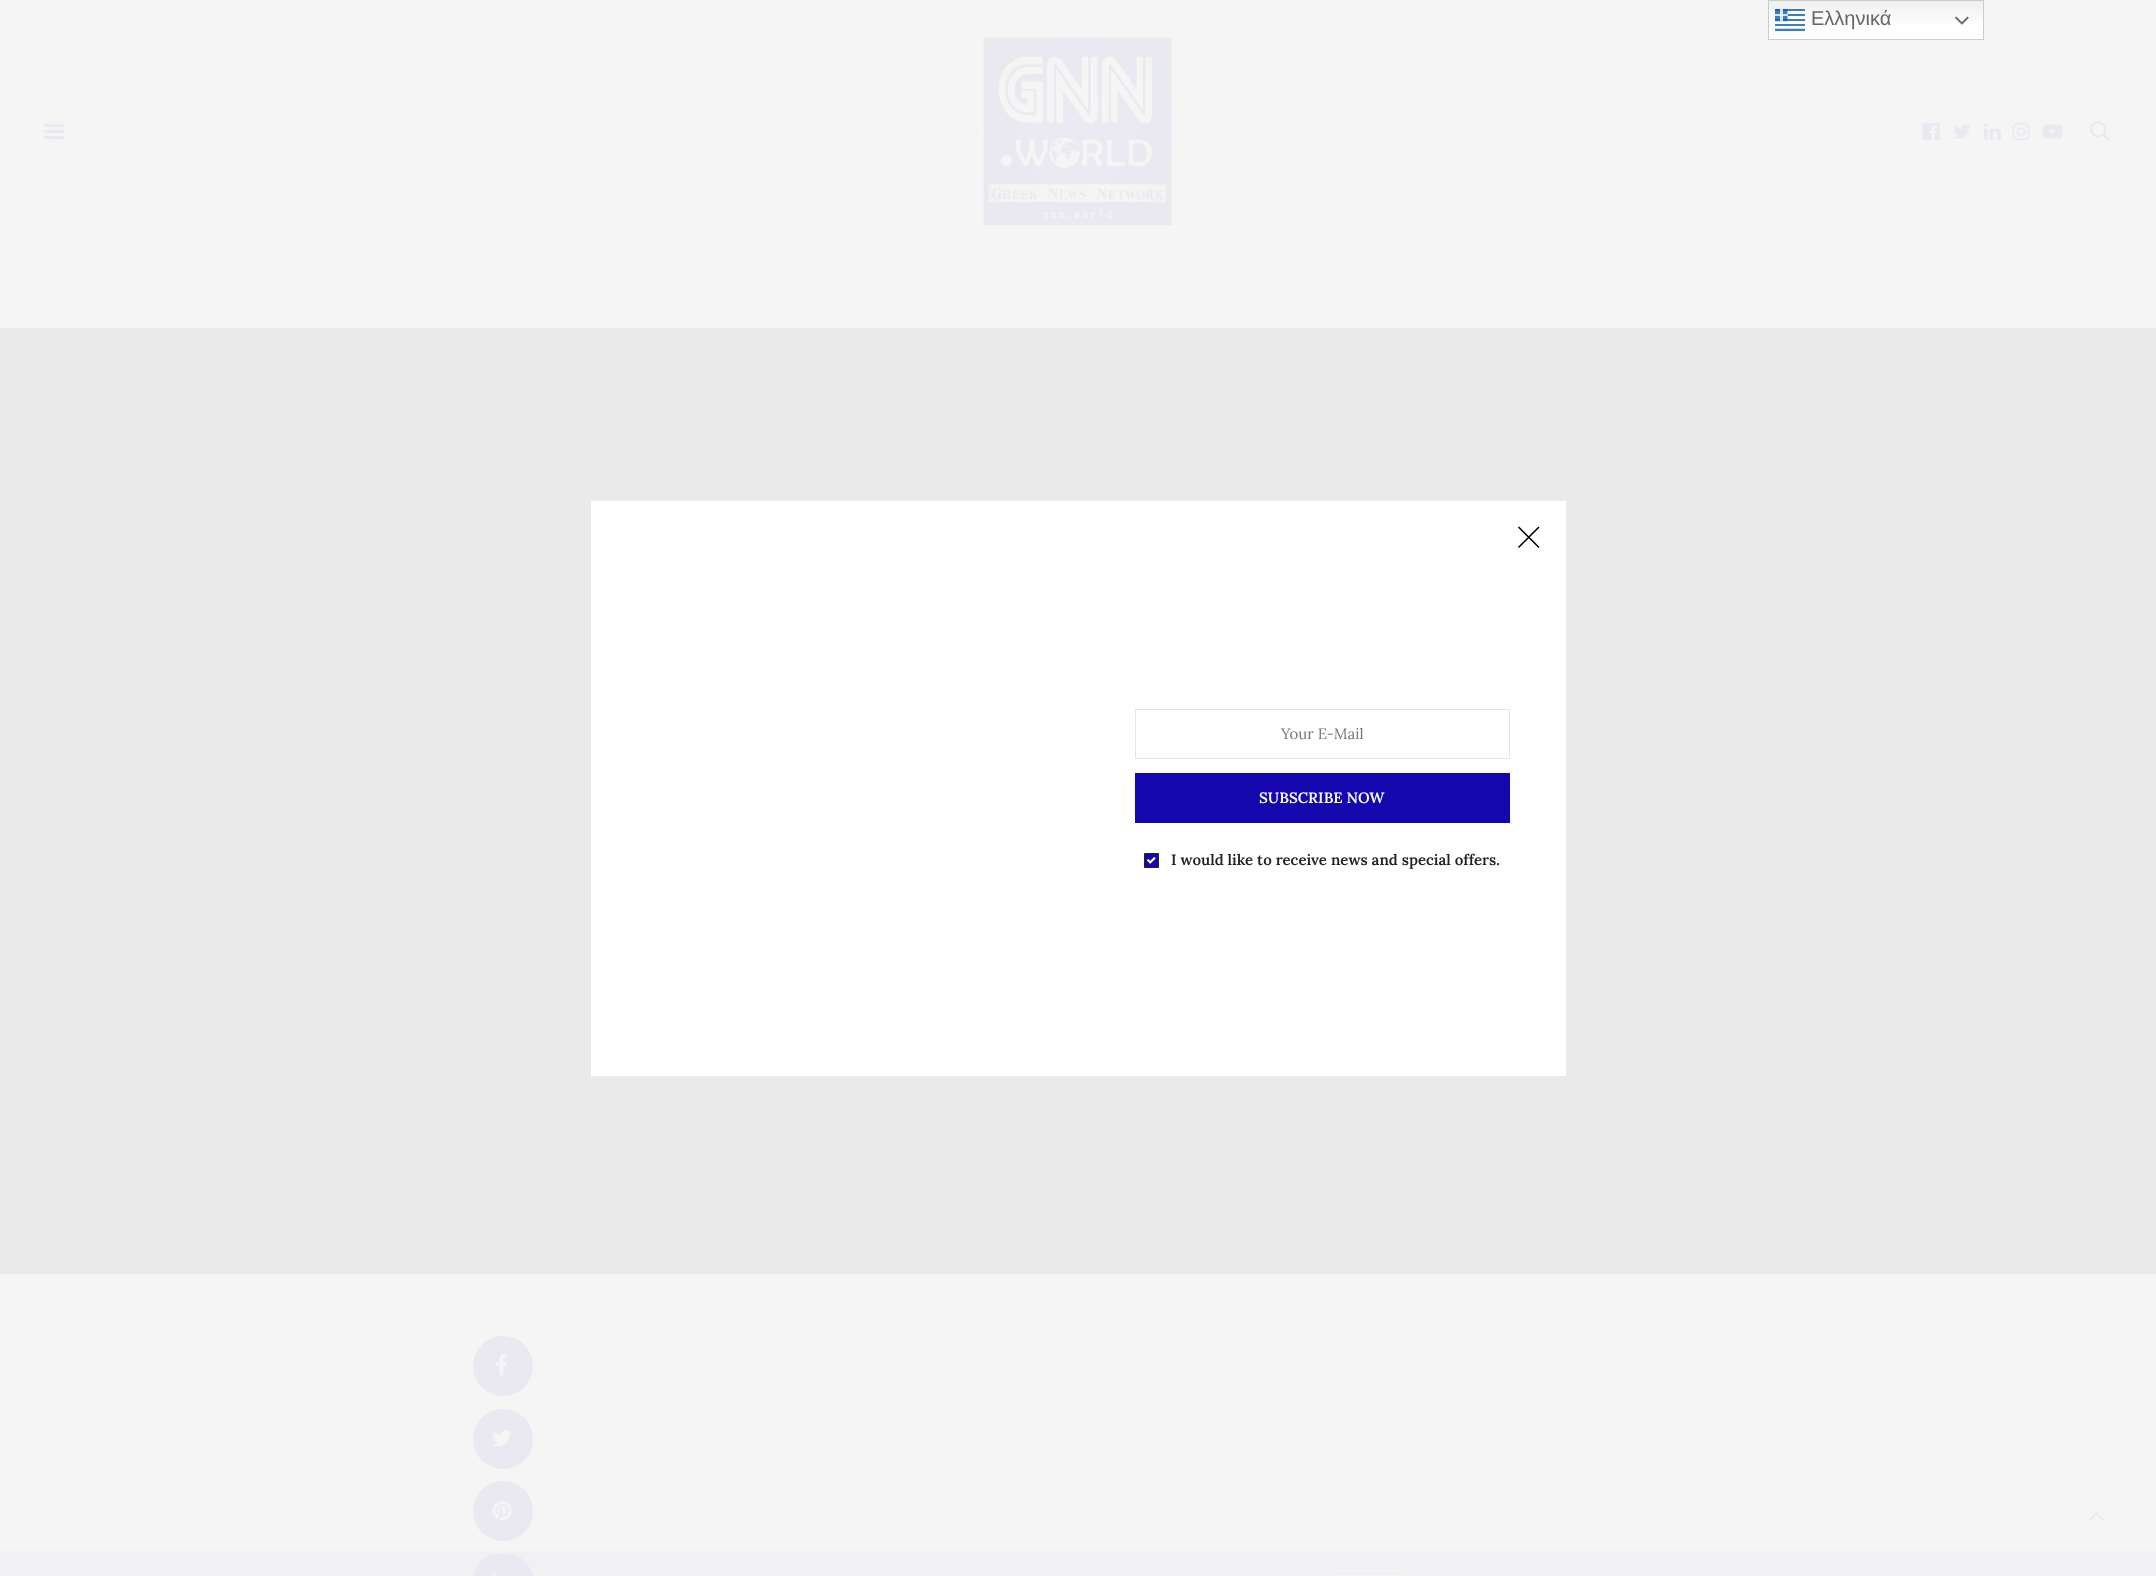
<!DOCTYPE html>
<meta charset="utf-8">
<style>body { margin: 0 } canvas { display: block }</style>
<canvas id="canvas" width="2156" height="1576"></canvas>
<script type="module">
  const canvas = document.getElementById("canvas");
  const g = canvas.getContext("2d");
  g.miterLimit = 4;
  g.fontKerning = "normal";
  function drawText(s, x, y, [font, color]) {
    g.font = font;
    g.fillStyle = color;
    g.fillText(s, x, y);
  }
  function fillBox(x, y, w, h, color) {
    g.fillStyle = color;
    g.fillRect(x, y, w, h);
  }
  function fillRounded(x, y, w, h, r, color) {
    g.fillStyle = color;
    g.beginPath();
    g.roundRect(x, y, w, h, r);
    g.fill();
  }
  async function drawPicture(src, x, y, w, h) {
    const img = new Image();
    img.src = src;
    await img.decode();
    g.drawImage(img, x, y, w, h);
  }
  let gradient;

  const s1 = ["20px Liberation Sans", "#666666"];
  const s2 = ["15px Lora", "#767676"];
  const s3 = ["600 15px Lora", "#FFFFFF"];
  const s4 = ["600 15px Lora", "#222222"];

  fillBox(0, 0, 2156, 1576, "#F5F5F5");
  gradient = g.createLinearGradient(1876, 0, 1876, 40);
  gradient.addColorStop(0, "#EFEFEF");
  gradient.addColorStop(0.7, "#FFFFFF");
  g.fillStyle = gradient;
  g.fillRect(1769, 1, 214, 38);
  g.strokeStyle = "#CCCCCC";
  g.strokeRect(1768.5, 0.5, 215, 39);
  await drawPicture("pic1.png", 1775, 8, 30, 24);
  drawText("Ελληνικά", 1811, 25, s1);
  await drawPicture("pic2.png", 1955, 16, 14, 9);
  fillRounded(43, 124, 22, 3, 1.5, "#EAE9F1");
  fillRounded(43, 130, 22, 3, 1.5, "#EAE9F1");
  fillRounded(43, 136, 22, 3, 1.5, "#EAE9F1");
  await drawPicture("pic3.png", 983, 37, 189, 188);
  await drawPicture("pic4.png", 1922, 123, 18, 18);
  await drawPicture("pic5.png", 1953, 124, 18, 15);
  await drawPicture("pic6.png", 1983, 123, 18, 17);
  await drawPicture("pic7.png", 2012, 123, 18, 18);
  await drawPicture("pic8.png", 2042, 124, 21, 15);
  await drawPicture("pic9.png", 2090, 121, 20, 20);
  fillBox(0, 328, 2156, 946, "#EAEAEA");
  g.fillStyle = "#EAE9F1";
  g.beginPath();
  g.arc(503, 1366, 30, 0, Math.PI * 2);
  g.fill();
  await drawPicture("pic10.png", 496, 1354, 12, 22);
  g.beginPath();
  g.arc(503, 1439, 30, 0, Math.PI * 2);
  g.fill();
  await drawPicture("pic11.png", 492, 1430, 20, 17);
  g.beginPath();
  g.arc(503, 1511, 30, 0, Math.PI * 2);
  g.fill();
  await drawPicture("pic12.png", 492, 1501, 20, 20);
  fillRounded(473, 1554, 60, 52, 30, "#EAE9F1");
  await drawPicture("pic13.png", 492, 1573, 6, 3);
  fillBox(591, 501, 975, 575, "#FFFFFF");
  g.beginPath();
  g.moveTo(1518.5, 527);
  g.lineTo(1539, 547.5);
  g.moveTo(1518.5, 547.5);
  g.lineTo(1539, 527);
  g.strokeStyle = "#000000";
  g.lineWidth = 1.6;
  g.stroke();
  g.strokeStyle = "#E5E5E5";
  g.lineWidth = 1;
  g.strokeRect(1135.5, 709.5, 374, 49);
  drawText("Your E-Mail", 1281, 739, s2);
  fillBox(1135, 773, 375, 50, "#1407AE");
  drawText("SUBSCRIBE NOW", 1259, 803, s3);
  g.fillStyle = "#1407AE";
  g.beginPath();
  g.rect(1144.5, 853.5, 14, 14);
  g.fill();
  g.strokeStyle = "#222222";
  g.stroke();
  await drawPicture("pic14.png", 1147, 857, 9, 7);
  drawText("I would like to receive news and special offers.", 1171, 865, s4);
  await drawPicture("pic15.png", 2089, 1512, 15, 9);
  fillBox(0, 1551, 2156, 25, "rgba(234, 233, 241, 0.38)");
  g.strokeStyle = "#F5F5F5";
  g.strokeRect(1334.5, 1570.5, 70, 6);
</script>
